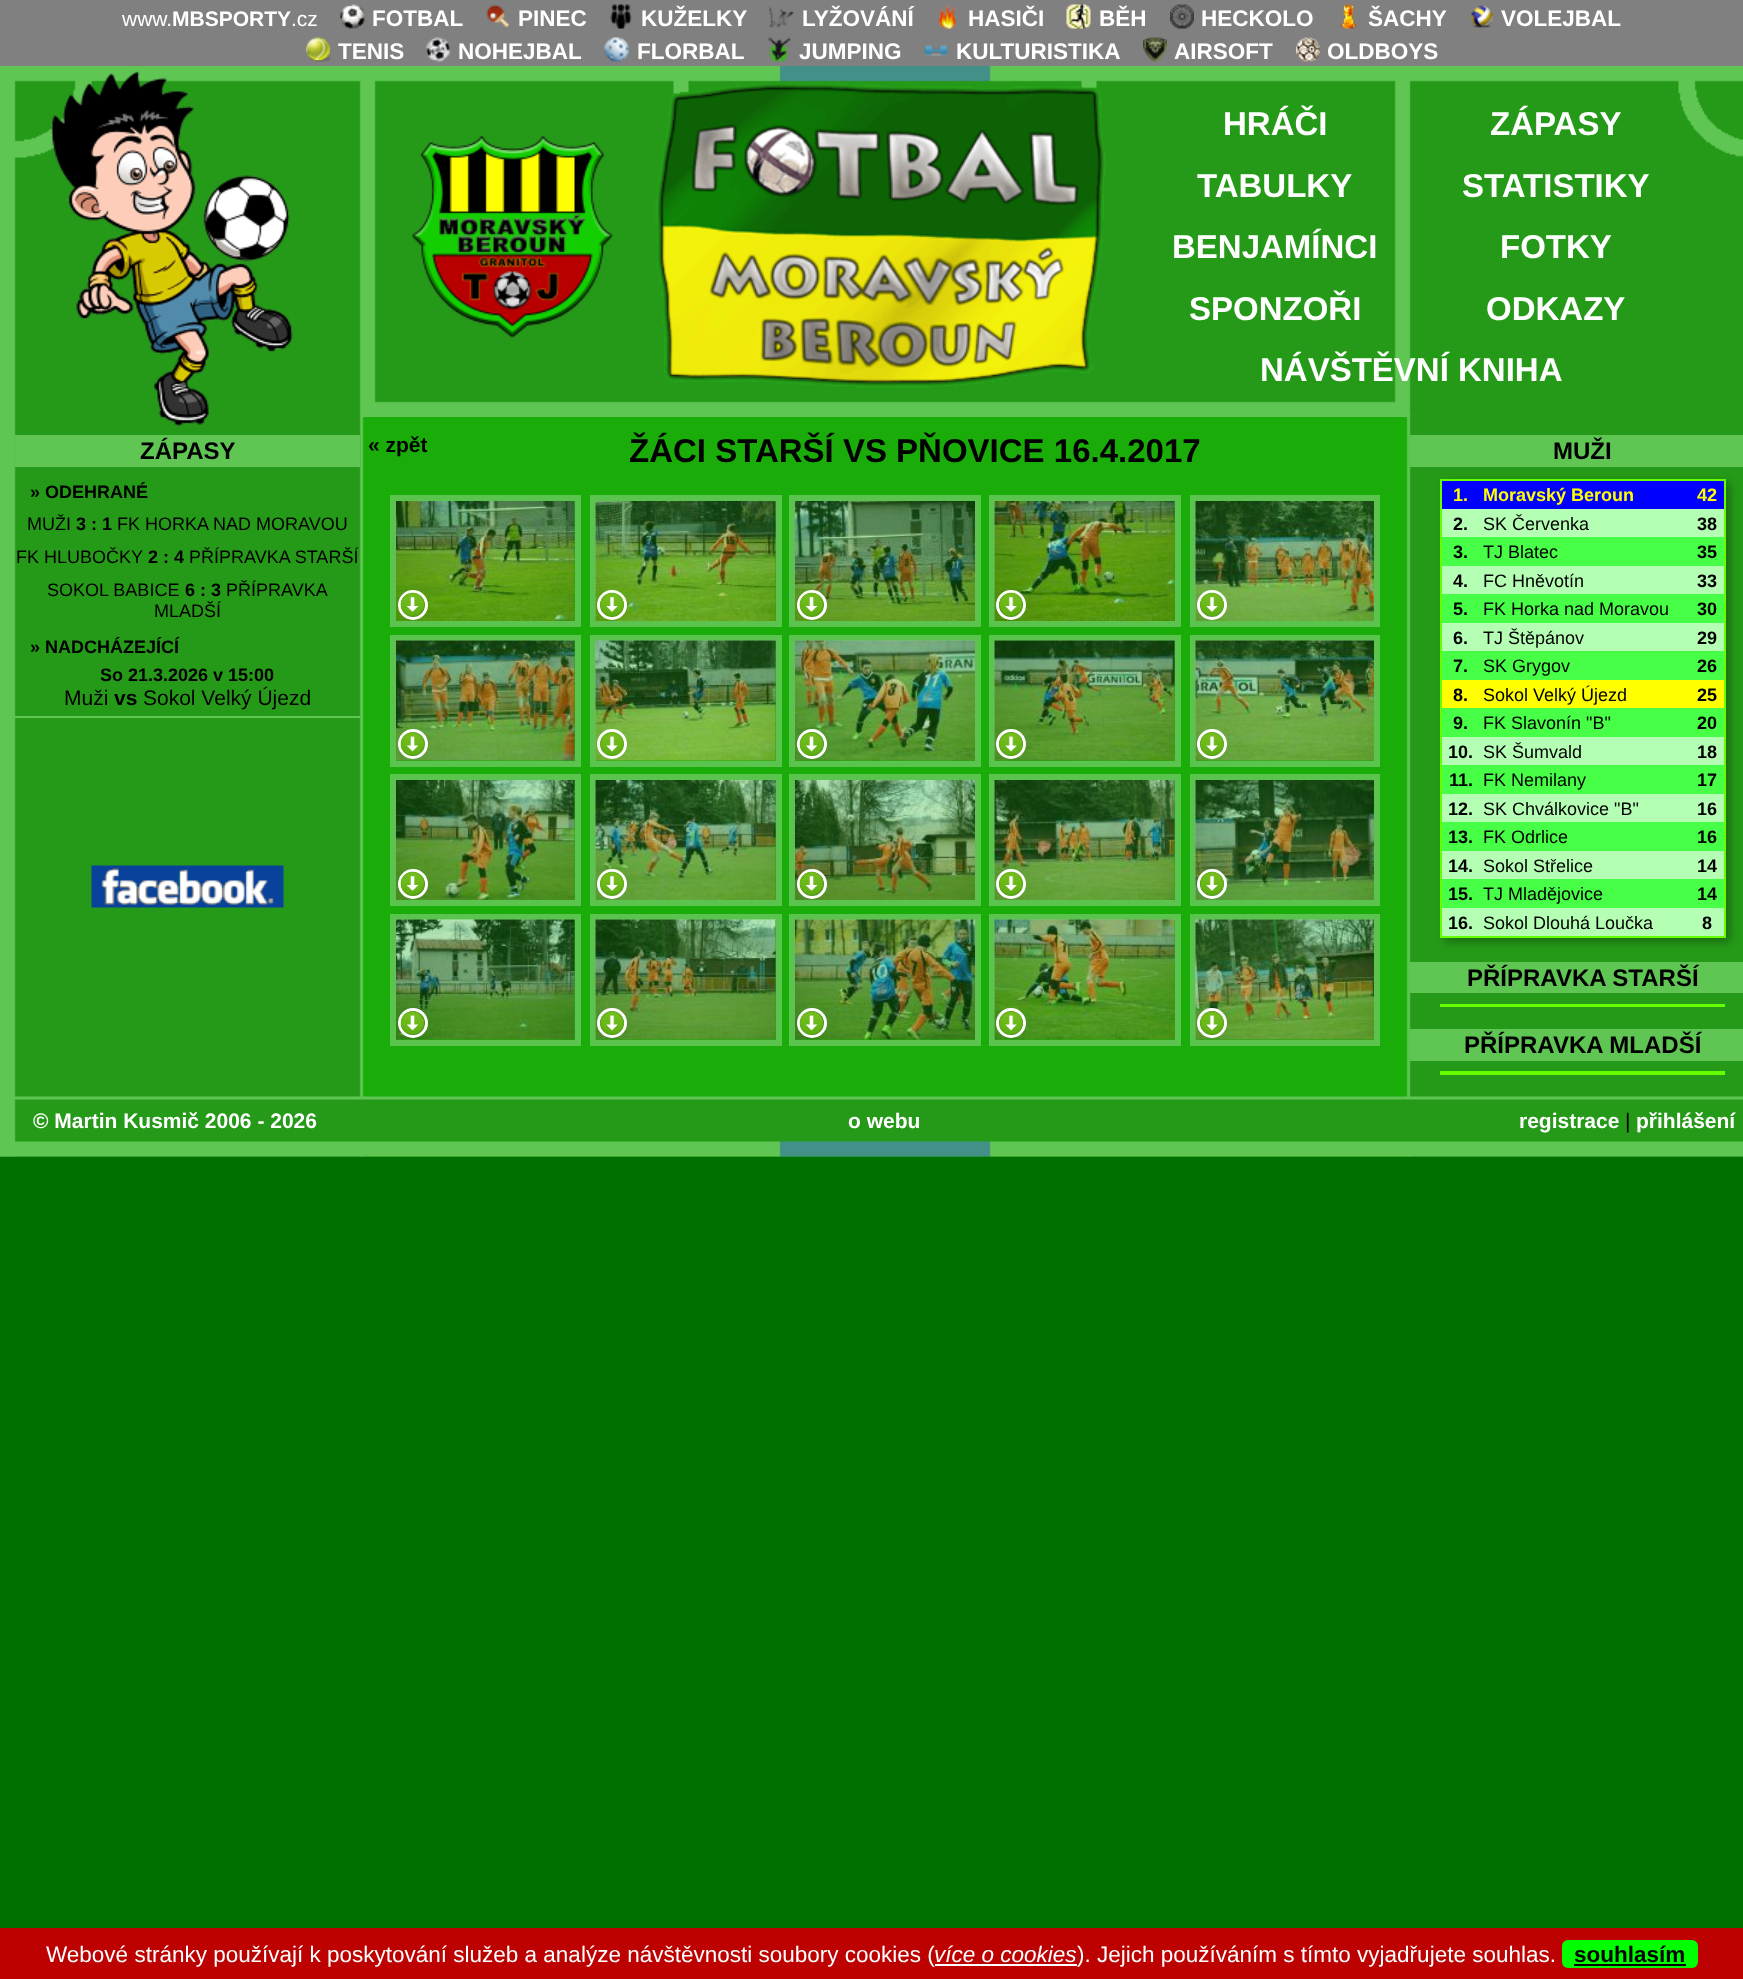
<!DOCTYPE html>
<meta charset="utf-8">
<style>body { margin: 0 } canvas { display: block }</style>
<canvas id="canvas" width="1743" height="1979"></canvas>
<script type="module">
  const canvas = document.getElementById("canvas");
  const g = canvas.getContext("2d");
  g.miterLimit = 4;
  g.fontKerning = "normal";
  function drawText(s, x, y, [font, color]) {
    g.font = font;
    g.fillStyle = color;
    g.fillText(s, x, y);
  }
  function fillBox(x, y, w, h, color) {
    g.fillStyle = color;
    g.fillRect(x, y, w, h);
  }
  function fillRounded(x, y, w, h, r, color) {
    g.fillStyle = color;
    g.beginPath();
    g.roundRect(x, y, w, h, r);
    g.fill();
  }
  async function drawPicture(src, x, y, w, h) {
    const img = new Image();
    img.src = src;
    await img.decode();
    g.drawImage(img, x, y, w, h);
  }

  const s1 = ["21px Liberation Sans", "#FFFFFF"];
  const s2 = ["bold 21px Liberation Sans", "#FFFFFF"];
  const s3 = ["bold 22.5px Liberation Sans", "#FFFFFF"];
  const s4 = ["22.5px Liberation Sans", "#FFFFFF"];
  const s5 = ["italic 22.5px Liberation Sans", "#FFFFFF"];
  const s6 = ["bold 22.5px Liberation Sans", "#000000"];
  const s7 = ["bold 33px Liberation Sans", "#FFFFFF"];
  const s8 = ["bold 24px Liberation Sans", "#000000"];
  const s9 = ["bold 18px Liberation Sans", "#000000"];
  const s10 = ["18px Liberation Sans", "#000000"];
  const s11 = ["21px Liberation Sans", "#000000"];
  const s12 = ["bold 21px Liberation Sans", "#000000"];
  const s13 = ["bold 33px Liberation Sans", "#000000"];
  const s14 = ["bold 18px Liberation Sans", "#FFFF00"];

  fillBox(0, 0, 1743, 1979, "#007000");
  fillBox(0, 0, 1743, 66, "#808080");
  drawText("www.", 122, 26, s1);
  drawText("MBSPORTY", 172, 26, s2);
  drawText(".cz", 291, 26, s1);
  await drawPicture("pic1.png", 340, 4, 25, 25);
  drawText("FOTBAL", 372, 26, s3);
  await drawPicture("pic2.png", 486, 4, 24, 24);
  drawText("PINEC", 518, 26, s3);
  await drawPicture("pic3.png", 610, 4, 22, 25);
  drawText("KUŽELKY", 641, 26, s3);
  await drawPicture("pic4.png", 769, 6, 25, 22);
  drawText("LYŽOVÁNÍ", 802, 26, s3);
  await drawPicture("pic5.png", 938, 4, 19, 25);
  drawText("HASIČI", 968, 26, s3);
  await drawPicture("pic6.png", 1066, 4, 25, 25);
  drawText("BĚH", 1099, 26, s3);
  await drawPicture("pic7.png", 1170, 4, 24, 25);
  drawText("HECKOLO", 1201, 26, s3);
  await drawPicture("pic8.png", 1340, 4, 17, 25);
  drawText("ŠACHY", 1368, 26, s3);
  await drawPicture("pic9.png", 1471, 5, 22, 24);
  drawText("VOLEJBAL", 1501, 26, s3);
  await drawPicture("pic10.png", 306, 37, 24, 25);
  drawText("TENIS", 338, 59, s3);
  await drawPicture("pic11.png", 426, 37, 24, 25);
  drawText("NOHEJBAL", 458, 59, s3);
  await drawPicture("pic12.png", 604, 37, 25, 25);
  drawText("FLORBAL", 637, 59, s3);
  await drawPicture("pic13.png", 768, 37, 23, 25);
  drawText("JUMPING", 799, 59, s3);
  await drawPicture("pic14.png", 924, 44, 24, 12);
  drawText("KULTURISTIKA", 956, 59, s3);
  await drawPicture("pic15.png", 1143, 37, 24, 25);
  drawText("AIRSOFT", 1174, 59, s3);
  await drawPicture("pic16.png", 1296, 37, 24, 25);
  drawText("OLDBOYS", 1327, 59, s3);
  fillBox(0, 1928, 1743, 51, "#BD0000");
  drawText("Webové stránky používají k poskytování služeb a analýze návštěvnosti soubory cookies (", 46, 1962, s4);
  drawText("více o cookies", 934, 1962, s5);
  fillBox(935, 1964, 142, 2, "#FFFFFF");
  drawText("). Jejich používáním s tímto vyjadřujete souhlas.", 1077, 1962, s4);
  fillRounded(1562, 1940, 136, 28, 6, "#00FF00");
  drawText("souhlasím", 1574, 1962, s6);
  fillBox(1574, 1964, 112, 2, "#000000");
  await drawPicture("pic17.png", 0, 66, 1743, 1091);
  await drawPicture("pic18.png", 14, 66, 1729, 351);
  await drawPicture("pic19.png", 50, 71, 243, 356);
  await drawPicture("pic20.png", 412, 135, 201, 203);
  await drawPicture("pic21.png", 655, 83, 451, 305);
  drawText("HRÁČI", 1223, 135, s7);
  drawText("TABULKY", 1197, 197, s7);
  drawText("BENJAMÍNCI", 1172, 258, s7);
  drawText("SPONZOŘI", 1189, 320, s7);
  drawText("ZÁPASY", 1490, 135, s7);
  drawText("STATISTIKY", 1462, 197, s7);
  drawText("FOTKY", 1500, 258, s7);
  drawText("ODKAZY", 1486, 320, s7);
  drawText("NÁVŠTĚVNÍ KNIHA", 1260, 381, s7);
  fillBox(15, 435, 345, 32, "#5FC654");
  drawText("ZÁPASY", 140, 459, s8);
  drawText("» ODEHRANÉ", 30, 498, s9);
  drawText("MUŽI", 27, 530, s10);
  drawText("3 : 1", 76, 530, s9);
  drawText("FK HORKA NAD MORAVOU", 117, 530, s10);
  drawText("FK HLUBOČKY", 16, 563, s10);
  drawText("2 : 4", 148, 563, s9);
  drawText("PŘÍPRAVKA STARŠÍ", 189, 563, s10);
  drawText("SOKOL BABICE", 47, 596, s10);
  drawText("6 : 3", 185, 596, s9);
  drawText("PŘÍPRAVKA", 226, 596, s10);
  drawText("MLADŠÍ", 154, 617, s10);
  drawText("» NADCHÁZEJÍCÍ", 30, 653, s9);
  drawText("So 21.3.2026 v 15:00", 100, 681, s9);
  fillBox(15, 716, 345, 2, "#5FC654");
  drawText("Muži", 64, 705, s11);
  drawText("vs", 114, 705, s12);
  drawText("Sokol Velký Újezd", 143, 705, s11);
  await drawPicture("pic22.png", 91, 865, 193, 43);
  drawText("« zpět", 368, 452, s12);
  drawText("ŽÁCI STARŠÍ VS PŇOVICE 16.4.2017", 629, 462, s13);
  g.strokeStyle = "#5AC44F";
  g.lineWidth = 6;
  g.strokeRect(393, 498, 185, 126);
  await drawPicture("pic23.png", 396, 501, 179, 120);
  g.beginPath();
  g.arc(413, 605, 13.5, 0, Math.PI * 2);
  g.strokeStyle = "#FFFFFF";
  g.lineWidth = 3;
  g.stroke();
  await drawPicture("pic24.png", 400, 592, 25, 25);
  g.strokeStyle = "#5AC44F";
  g.lineWidth = 6;
  g.strokeRect(593, 498, 186, 126);
  await drawPicture("pic25.png", 595, 501, 181, 120);
  g.beginPath();
  g.arc(612, 605, 13.5, 0, Math.PI * 2);
  g.strokeStyle = "#FFFFFF";
  g.lineWidth = 3;
  g.stroke();
  await drawPicture("pic26.png", 600, 592, 24, 25);
  g.strokeStyle = "#5AC44F";
  g.lineWidth = 6;
  g.strokeRect(792, 498, 186, 126);
  await drawPicture("pic27.png", 795, 501, 180, 120);
  g.beginPath();
  g.arc(812, 605, 13.5, 0, Math.PI * 2);
  g.strokeStyle = "#FFFFFF";
  g.lineWidth = 3;
  g.stroke();
  await drawPicture("pic28.png", 799, 592, 25, 25);
  g.strokeStyle = "#5AC44F";
  g.lineWidth = 6;
  g.strokeRect(992, 498, 186, 126);
  await drawPicture("pic29.png", 994, 501, 181, 120);
  g.beginPath();
  g.arc(1011, 605, 13.5, 0, Math.PI * 2);
  g.strokeStyle = "#FFFFFF";
  g.lineWidth = 3;
  g.stroke();
  await drawPicture("pic30.png", 999, 592, 24, 25);
  g.strokeStyle = "#5AC44F";
  g.lineWidth = 6;
  g.strokeRect(1193, 498, 184, 126);
  await drawPicture("pic31.png", 1195, 501, 179, 120);
  g.beginPath();
  g.arc(1212, 605, 13.5, 0, Math.PI * 2);
  g.strokeStyle = "#FFFFFF";
  g.lineWidth = 3;
  g.stroke();
  await drawPicture("pic32.png", 1200, 592, 24, 25);
  g.strokeStyle = "#5AC44F";
  g.lineWidth = 6;
  g.strokeRect(393, 638, 185, 126);
  await drawPicture("pic33.png", 396, 640, 179, 121);
  g.beginPath();
  g.arc(413, 744, 13.5, 0, Math.PI * 2);
  g.strokeStyle = "#FFFFFF";
  g.lineWidth = 3;
  g.stroke();
  await drawPicture("pic34.png", 400, 732, 25, 24);
  g.strokeStyle = "#5AC44F";
  g.lineWidth = 6;
  g.strokeRect(593, 638, 186, 126);
  await drawPicture("pic35.png", 595, 640, 181, 121);
  g.beginPath();
  g.arc(612, 744, 13.5, 0, Math.PI * 2);
  g.strokeStyle = "#FFFFFF";
  g.lineWidth = 3;
  g.stroke();
  await drawPicture("pic36.png", 600, 732, 24, 24);
  g.strokeStyle = "#5AC44F";
  g.lineWidth = 6;
  g.strokeRect(792, 638, 186, 126);
  await drawPicture("pic37.png", 795, 640, 180, 121);
  g.beginPath();
  g.arc(812, 744, 13.5, 0, Math.PI * 2);
  g.strokeStyle = "#FFFFFF";
  g.lineWidth = 3;
  g.stroke();
  await drawPicture("pic38.png", 799, 732, 25, 24);
  g.strokeStyle = "#5AC44F";
  g.lineWidth = 6;
  g.strokeRect(992, 638, 186, 126);
  await drawPicture("pic39.png", 994, 640, 181, 121);
  g.beginPath();
  g.arc(1011, 744, 13.5, 0, Math.PI * 2);
  g.strokeStyle = "#FFFFFF";
  g.lineWidth = 3;
  g.stroke();
  await drawPicture("pic40.png", 999, 732, 24, 24);
  g.strokeStyle = "#5AC44F";
  g.lineWidth = 6;
  g.strokeRect(1193, 638, 184, 126);
  await drawPicture("pic41.png", 1195, 640, 179, 121);
  g.beginPath();
  g.arc(1212, 744, 13.5, 0, Math.PI * 2);
  g.strokeStyle = "#FFFFFF";
  g.lineWidth = 3;
  g.stroke();
  await drawPicture("pic42.png", 1200, 732, 24, 24);
  g.strokeStyle = "#5AC44F";
  g.lineWidth = 6;
  g.strokeRect(393, 777, 185, 126);
  await drawPicture("pic43.png", 396, 780, 179, 120);
  g.beginPath();
  g.arc(413, 884, 13.5, 0, Math.PI * 2);
  g.strokeStyle = "#FFFFFF";
  g.lineWidth = 3;
  g.stroke();
  await drawPicture("pic44.png", 400, 871, 25, 25);
  g.strokeStyle = "#5AC44F";
  g.lineWidth = 6;
  g.strokeRect(593, 777, 186, 126);
  await drawPicture("pic45.png", 595, 780, 181, 120);
  g.beginPath();
  g.arc(612, 884, 13.5, 0, Math.PI * 2);
  g.strokeStyle = "#FFFFFF";
  g.lineWidth = 3;
  g.stroke();
  await drawPicture("pic46.png", 600, 871, 24, 25);
  g.strokeStyle = "#5AC44F";
  g.lineWidth = 6;
  g.strokeRect(792, 777, 186, 126);
  await drawPicture("pic47.png", 795, 780, 180, 120);
  g.beginPath();
  g.arc(812, 884, 13.5, 0, Math.PI * 2);
  g.strokeStyle = "#FFFFFF";
  g.lineWidth = 3;
  g.stroke();
  await drawPicture("pic48.png", 799, 871, 25, 25);
  g.strokeStyle = "#5AC44F";
  g.lineWidth = 6;
  g.strokeRect(992, 777, 186, 126);
  await drawPicture("pic49.png", 994, 780, 181, 120);
  g.beginPath();
  g.arc(1011, 884, 13.5, 0, Math.PI * 2);
  g.strokeStyle = "#FFFFFF";
  g.lineWidth = 3;
  g.stroke();
  await drawPicture("pic50.png", 999, 871, 24, 25);
  g.strokeStyle = "#5AC44F";
  g.lineWidth = 6;
  g.strokeRect(1193, 777, 184, 126);
  await drawPicture("pic51.png", 1195, 780, 179, 120);
  g.beginPath();
  g.arc(1212, 884, 13.5, 0, Math.PI * 2);
  g.strokeStyle = "#FFFFFF";
  g.lineWidth = 3;
  g.stroke();
  await drawPicture("pic52.png", 1200, 871, 24, 25);
  g.strokeStyle = "#5AC44F";
  g.lineWidth = 6;
  g.strokeRect(393, 917, 185, 126);
  await drawPicture("pic53.png", 396, 919, 179, 121);
  g.beginPath();
  g.arc(413, 1023, 13.5, 0, Math.PI * 2);
  g.strokeStyle = "#FFFFFF";
  g.lineWidth = 3;
  g.stroke();
  await drawPicture("pic54.png", 400, 1011, 25, 24);
  g.strokeStyle = "#5AC44F";
  g.lineWidth = 6;
  g.strokeRect(593, 917, 186, 126);
  await drawPicture("pic55.png", 595, 919, 181, 121);
  g.beginPath();
  g.arc(612, 1023, 13.5, 0, Math.PI * 2);
  g.strokeStyle = "#FFFFFF";
  g.lineWidth = 3;
  g.stroke();
  await drawPicture("pic56.png", 600, 1011, 24, 24);
  g.strokeStyle = "#5AC44F";
  g.lineWidth = 6;
  g.strokeRect(792, 917, 186, 126);
  await drawPicture("pic57.png", 795, 919, 180, 121);
  g.beginPath();
  g.arc(812, 1023, 13.5, 0, Math.PI * 2);
  g.strokeStyle = "#FFFFFF";
  g.lineWidth = 3;
  g.stroke();
  await drawPicture("pic58.png", 799, 1011, 25, 24);
  g.strokeStyle = "#5AC44F";
  g.lineWidth = 6;
  g.strokeRect(992, 917, 186, 126);
  await drawPicture("pic59.png", 994, 919, 181, 121);
  g.beginPath();
  g.arc(1011, 1023, 13.5, 0, Math.PI * 2);
  g.strokeStyle = "#FFFFFF";
  g.lineWidth = 3;
  g.stroke();
  await drawPicture("pic60.png", 999, 1011, 24, 24);
  g.strokeStyle = "#5AC44F";
  g.lineWidth = 6;
  g.strokeRect(1193, 917, 184, 126);
  await drawPicture("pic61.png", 1195, 919, 179, 121);
  g.beginPath();
  g.arc(1212, 1023, 13.5, 0, Math.PI * 2);
  g.strokeStyle = "#FFFFFF";
  g.lineWidth = 3;
  g.stroke();
  await drawPicture("pic62.png", 1200, 1011, 24, 24);
  fillBox(1410, 435, 333, 32, "#5FC654");
  drawText("MUŽI", 1553, 459, s8);
  g.fillStyle = "rgba(0, 0, 0, 0.3)";
  g.filter = "blur(4px)";
  g.beginPath();
  g.rect(1445, 483, 285, 459);
  g.fill();
  g.filter = "none";
  fillBox(1442, 537, 282, 371, "#46FF46");
  fillBox(1440, 479, 285, 2, "#66FF00");
  fillBox(1724, 479, 2, 459, "#66FF00");
  fillBox(1440, 936, 285, 2, "#66FF00");
  fillBox(1440, 479, 2, 459, "#66FF00");
  fillBox(1442, 481, 282, 28, "#0000FF");
  drawText("1.", 1453, 501, s14);
  drawText("Moravský Beroun", 1483, 501, s14);
  drawText("42", 1697, 501, s14);
  fillBox(1442, 509, 282, 28, "#B5FFB5");
  drawText("2.", 1453, 530, s9);
  drawText("SK Červenka", 1483, 530, s10);
  drawText("38", 1697, 530, s9);
  drawText("3.", 1453, 558, s9);
  drawText("TJ Blatec", 1483, 558, s10);
  drawText("35", 1697, 558, s9);
  fillBox(1442, 566, 282, 28, "#B5FFB5");
  drawText("4.", 1453, 587, s9);
  drawText("FC Hněvotín", 1483, 587, s10);
  drawText("33", 1697, 587, s9);
  drawText("5.", 1453, 615, s9);
  drawText("FK Horka nad Moravou", 1483, 615, s10);
  drawText("30", 1697, 615, s9);
  fillBox(1442, 623, 282, 28, "#B5FFB5");
  drawText("6.", 1453, 644, s9);
  drawText("TJ Štěpánov", 1483, 644, s10);
  drawText("29", 1697, 644, s9);
  drawText("7.", 1453, 672, s9);
  drawText("SK Grygov", 1483, 672, s10);
  drawText("26", 1697, 672, s9);
  fillBox(1442, 680, 282, 28, "#FFFF00");
  drawText("8.", 1453, 701, s9);
  drawText("Sokol Velký Újezd", 1483, 701, s10);
  drawText("25", 1697, 701, s9);
  drawText("9.", 1453, 729, s9);
  drawText("FK Slavonín \"B\"", 1483, 729, s10);
  drawText("20", 1697, 729, s9);
  fillBox(1442, 737, 282, 28, "#B5FFB5");
  drawText("10.", 1448, 758, s9);
  drawText("SK Šumvald", 1483, 758, s10);
  drawText("18", 1697, 758, s9);
  drawText("11.", 1449, 786, s9);
  drawText("FK Nemilany", 1483, 786, s10);
  drawText("17", 1697, 786, s9);
  fillBox(1442, 794, 282, 28, "#B5FFB5");
  drawText("12.", 1448, 815, s9);
  drawText("SK Chválkovice \"B\"", 1483, 815, s10);
  drawText("16", 1697, 815, s9);
  drawText("13.", 1448, 843, s9);
  drawText("FK Odrlice", 1483, 843, s10);
  drawText("16", 1697, 843, s9);
  fillBox(1442, 851, 282, 28, "#B5FFB5");
  drawText("14.", 1448, 872, s9);
  drawText("Sokol Střelice", 1483, 872, s10);
  drawText("14", 1697, 872, s9);
  drawText("15.", 1448, 900, s9);
  drawText("TJ Mladějovice", 1483, 900, s10);
  drawText("14", 1697, 900, s9);
  fillBox(1442, 908, 282, 28, "#B5FFB5");
  drawText("16.", 1448, 929, s9);
  drawText("Sokol Dlouhá Loučka", 1483, 929, s10);
  drawText("8", 1702, 929, s9);
  fillBox(1410, 962, 333, 31, "#5FC654");
  drawText("PŘÍPRAVKA STARŠÍ", 1467, 986, s8);
  fillBox(1440, 1004, 285, 3, "#66FF00");
  fillBox(1410, 1029, 333, 32, "#5FC654");
  drawText("PŘÍPRAVKA MLADŠÍ", 1464, 1053, s8);
  fillBox(1440, 1071, 285, 4, "#66FF00");
  await drawPicture("pic63.png", 0, 1096, 1743, 61);
  drawText("© Martin Kusmič 2006 - 2026", 33, 1128, s2);
  drawText("o webu", 848, 1128, s2);
  drawText("registrace", 1519, 1128, s2);
  drawText("|", 1625, 1128, s11);
  drawText("přihlášení", 1636, 1128, s2);
</script>
